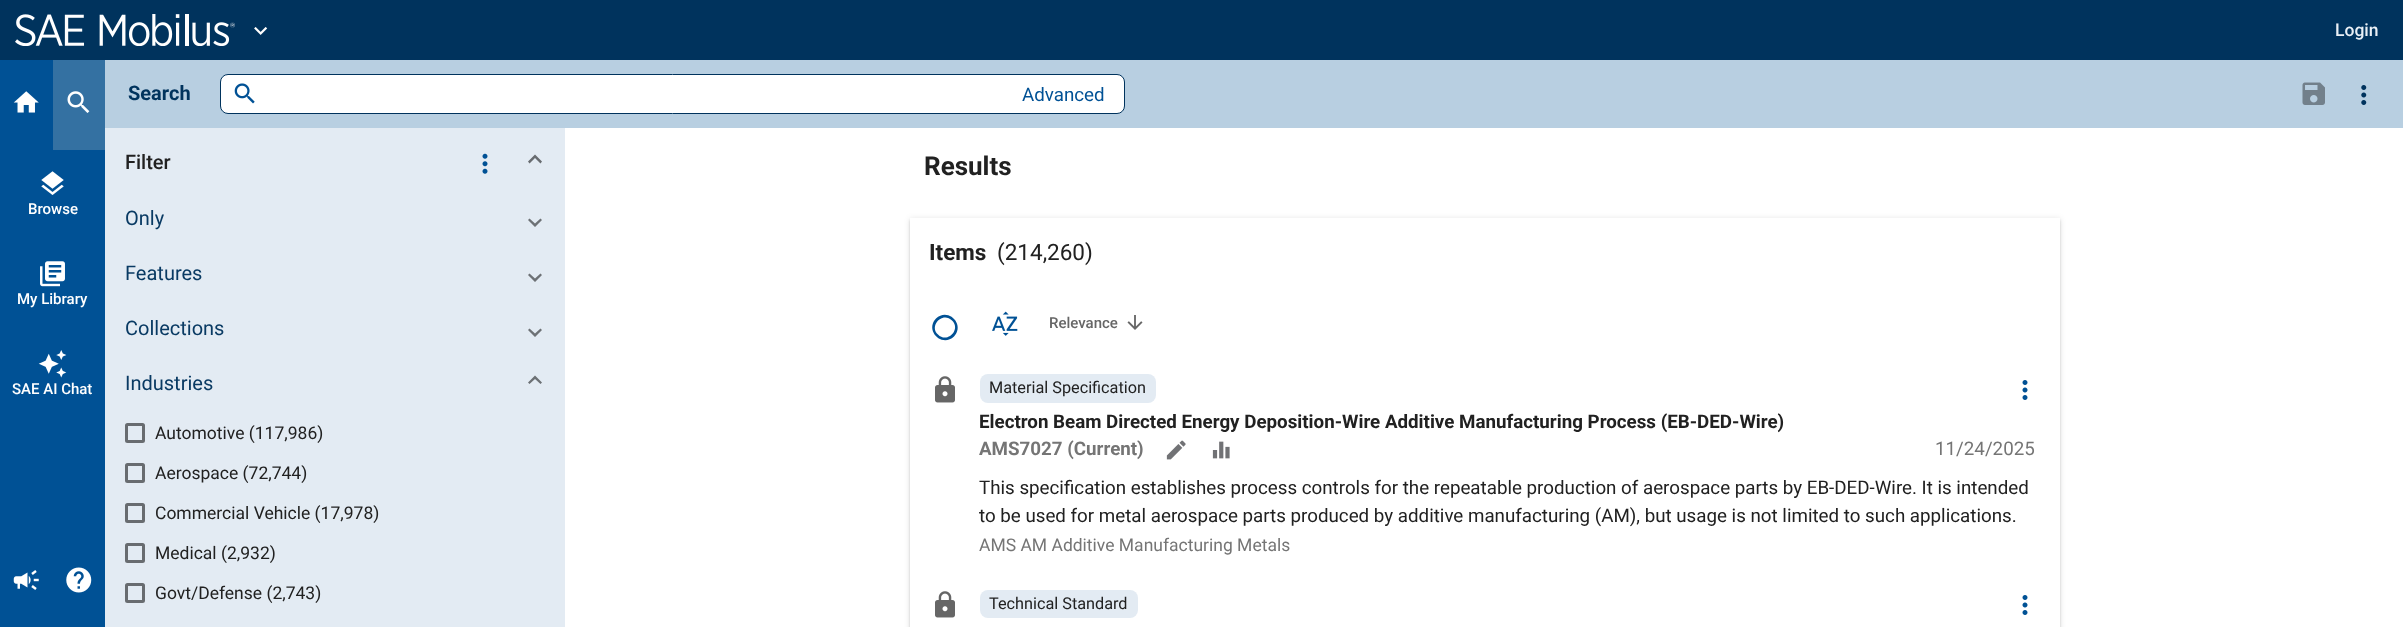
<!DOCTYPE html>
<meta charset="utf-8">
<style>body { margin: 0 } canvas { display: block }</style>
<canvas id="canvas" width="2403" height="627"></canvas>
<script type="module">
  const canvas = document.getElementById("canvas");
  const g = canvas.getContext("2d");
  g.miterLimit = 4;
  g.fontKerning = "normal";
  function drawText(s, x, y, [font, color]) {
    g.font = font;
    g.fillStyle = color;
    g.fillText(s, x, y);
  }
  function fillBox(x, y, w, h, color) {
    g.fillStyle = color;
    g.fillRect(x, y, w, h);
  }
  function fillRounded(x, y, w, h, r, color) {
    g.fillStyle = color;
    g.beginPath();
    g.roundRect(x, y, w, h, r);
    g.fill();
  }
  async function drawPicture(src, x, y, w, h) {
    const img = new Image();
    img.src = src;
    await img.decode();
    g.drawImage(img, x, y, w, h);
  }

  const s1 = ["500 17.5px Roboto", "#E9F0F6"];
  const s2 = ["500 15px Roboto", "#FFFFFF"];
  const s3 = ["bold 20px Roboto", "#00335D"];
  const s4 = ["18.75px Roboto", "#005195"];
  const s5 = ["500 20px Roboto", "#212121"];
  const s6 = ["20px Roboto", "#093A63"];
  const s7 = ["17.5px Roboto", "#212121"];
  const s8 = ["bold 26px Roboto", "#212121"];
  const s9 = ["bold 22.5px Roboto", "#212121"];
  const s10 = ["22.5px Roboto", "#212121"];
  const s11 = ["500 15px Roboto", "#666666"];
  const s12 = ["16.25px Roboto", "#212121"];
  const s13 = ["bold 18.75px Roboto", "#212121"];
  const s14 = ["bold 18.75px Roboto", "#757575"];
  const s15 = ["18.75px Roboto", "#757575"];
  const s16 = ["18.75px Roboto", "#212121"];
  const s17 = ["17.5px Roboto", "#757575"];

  fillBox(0, 0, 2403, 627, "#FFFFFF");
  fillBox(0, 0, 2403, 60, "#00335D");
  await drawPicture("pic1.png", 15, 14, 220, 32);
  await drawPicture("pic2.png", 254, 27, 14, 8);
  drawText("Login", 2335, 36, s1);
  fillBox(0, 60, 105, 567, "#005195");
  await drawPicture("pic3.png", 13, 91, 26, 22);
  fillBox(53, 60, 52, 90, "#3471A2");
  await drawPicture("pic4.png", 67, 91, 23, 22);
  await drawPicture("pic5.png", 41, 171, 23, 24);
  drawText("Browse", 28, 214, s2);
  await drawPicture("pic6.png", 40, 261, 25, 26);
  drawText("My Library", 17, 304, s2);
  await drawPicture("pic7.png", 38, 350, 29, 28);
  drawText("SAE AI Chat", 12, 394, s2);
  await drawPicture("pic8.png", 13, 570, 26, 20);
  await drawPicture("pic9.png", 66, 567, 26, 26);
  fillBox(105, 60, 2298, 68, "#B8CFE1");
  drawText("Search", 128, 100, s3);
  g.fillStyle = "#FFFFFF";
  g.beginPath();
  g.roundRect(220.5, 74.5, 904, 39, 7.5);
  g.fill();
  g.strokeStyle = "#00335D";
  g.stroke();
  await drawPicture("pic10.png", 234, 83, 21, 21);
  drawText("Advanced", 1022, 101, s4);
  await drawPicture("pic11.png", 2302, 82, 23, 23);
  await drawPicture("pic12.png", 2361, 85, 6, 20);
  fillBox(105, 128, 460, 499, "#E3EBF3");
  drawText("Filter", 125, 169, s5);
  g.fillStyle = "#686C70";
  g.beginPath();
  g.moveTo(528, 161.5);
  g.lineTo(535, 154.5);
  g.lineTo(535, 158);
  g.lineTo(529.5, 163.5);
  g.closePath();
  g.moveTo(535, 154.5);
  g.lineTo(542, 161.5);
  g.lineTo(540.5, 163.5);
  g.lineTo(535, 158);
  g.closePath();
  g.fill();
  await drawPicture("pic13.png", 482, 153, 6, 21);
  drawText("Only", 125, 225, s6);
  g.fillStyle = "#6D7175";
  g.beginPath();
  g.moveTo(542, 220);
  g.lineTo(535, 227);
  g.lineTo(535, 223.5);
  g.lineTo(540.5, 218.5);
  g.closePath();
  g.moveTo(535, 227);
  g.lineTo(528, 220);
  g.lineTo(529.5, 218.5);
  g.lineTo(535, 223.5);
  g.closePath();
  g.fill();
  drawText("Features", 125, 280, s6);
  g.fillStyle = "#6D7175";
  g.beginPath();
  g.moveTo(542, 275);
  g.lineTo(535, 282);
  g.lineTo(535, 278.5);
  g.lineTo(540.5, 273.5);
  g.closePath();
  g.moveTo(535, 282);
  g.lineTo(528, 275);
  g.lineTo(529.5, 273.5);
  g.lineTo(535, 278.5);
  g.closePath();
  g.fill();
  drawText("Collections", 125, 335, s6);
  g.fillStyle = "#6D7175";
  g.beginPath();
  g.moveTo(542, 330);
  g.lineTo(535, 337);
  g.lineTo(535, 333.5);
  g.lineTo(540.5, 328.5);
  g.closePath();
  g.moveTo(535, 337);
  g.lineTo(528, 330);
  g.lineTo(529.5, 328.5);
  g.lineTo(535, 333.5);
  g.closePath();
  g.fill();
  drawText("Industries", 125, 390, s6);
  g.fillStyle = "#6D7175";
  g.beginPath();
  g.moveTo(528, 382.5);
  g.lineTo(535, 375.5);
  g.lineTo(535, 379);
  g.lineTo(529.5, 384);
  g.closePath();
  g.moveTo(535, 375.5);
  g.lineTo(542, 382.5);
  g.lineTo(540.5, 384);
  g.lineTo(535, 379);
  g.closePath();
  g.fill();
  g.beginPath();
  g.roundRect(126.5, 424.5, 17, 17, 1);
  g.strokeStyle = "#686C70";
  g.lineWidth = 3;
  g.stroke();
  drawText("Automotive (117,986)", 155, 439, s7);
  g.beginPath();
  g.roundRect(126.5, 464.5, 17, 17, 1);
  g.stroke();
  drawText("Aerospace (72,744)", 155, 479, s7);
  g.beginPath();
  g.roundRect(126.5, 504.5, 17, 17, 1);
  g.stroke();
  drawText("Commercial Vehicle (17,978)", 155, 519, s7);
  g.beginPath();
  g.roundRect(126.5, 544.5, 17, 17, 1);
  g.stroke();
  drawText("Medical (2,932)", 155, 559, s7);
  g.beginPath();
  g.roundRect(126.5, 584.5, 17, 17, 1);
  g.stroke();
  drawText("Govt/Defense (2,743)", 155, 599, s7);
  drawText("Results", 924, 175, s8);
  g.save();
  g.beginPath();
  g.moveTo(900, 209);
  g.lineTo(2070, 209);
  g.lineTo(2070, 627);
  g.lineTo(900, 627);
  g.closePath();
  g.moveTo(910, 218);
  g.lineTo(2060, 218);
  g.lineTo(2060, 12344);
  g.lineTo(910, 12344);
  g.closePath();
  g.clip("evenodd");
  g.fillStyle = "rgba(0, 0, 0, 0.12)";
  g.filter = "blur(3px)";
  g.beginPath();
  g.rect(910, 219, 1150, 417);
  g.fill();
  g.filter = "none";
  g.restore();
  g.save();
  g.beginPath();
  g.moveTo(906, 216);
  g.lineTo(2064, 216);
  g.lineTo(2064, 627);
  g.lineTo(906, 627);
  g.closePath();
  g.moveTo(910, 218);
  g.lineTo(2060, 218);
  g.lineTo(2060, 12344);
  g.lineTo(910, 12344);
  g.closePath();
  g.clip("evenodd");
  g.fillStyle = "rgba(0, 0, 0, 0.14)";
  g.filter = "blur(1px)";
  g.beginPath();
  g.rect(910, 220, 1150, 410);
  g.fill();
  g.filter = "none";
  g.restore();
  drawText("Items", 929, 260, s9);
  drawText("(214,260)", 997, 260, s10);
  g.fillStyle = "#005195";
  g.beginPath();
  g.moveTo(938, 334.5);
  g.bezierCurveTo(947, 344, 961.5, 329.5, 952, 320.5);
  g.bezierCurveTo(943, 311, 928.5, 325.5, 938, 334.5);
  g.closePath();
  g.moveTo(936, 318.5);
  g.bezierCurveTo(948, 307, 965.5, 324.5, 954, 336.5);
  g.bezierCurveTo(942, 348, 924.5, 330.5, 936, 318.5);
  g.closePath();
  g.fill();
  await drawPicture("pic14.png", 992, 311, 26, 25);
  drawText("Relevance", 1049, 328, s11);
  await drawPicture("pic15.png", 1127, 315, 16, 15);
  fillRounded(980, 374, 176, 29, 8, "#E3EBF3");
  drawText("Material Specification", 989, 393, s12);
  await drawPicture("pic16.png", 2022, 380, 6, 20);
  await drawPicture("pic17.png", 935, 376, 20, 27);
  drawText("Electron Beam Directed Energy Deposition-Wire Additive Manufacturing Process (EB-DED-Wire)", 979, 428, s13);
  drawText("AMS7027 (Current)", 979, 455, s14);
  await drawPicture("pic18.png", 1166, 440, 20, 20);
  await drawPicture("pic19.png", 1212, 441, 18, 18);
  drawText("11/24/2025", 1935, 455, s15);
  drawText("This specification establishes process controls for the repeatable production of aerospace parts by EB-DED-Wire. It is intended", 979, 494, s16);
  drawText("to be used for metal aerospace parts produced by additive manufacturing (AM), but usage is not limited to such applications.", 979, 522, s16);
  drawText("AMS AM Additive Manufacturing Metals", 979, 551, s17);
  await drawPicture("pic17.png", 935, 591, 20, 27);
  fillRounded(980, 590, 158, 28, 8, "#E3EBF3");
  drawText("Technical Standard", 989, 609, s12);
  await drawPicture("pic16.png", 2022, 595, 6, 20);
</script>
